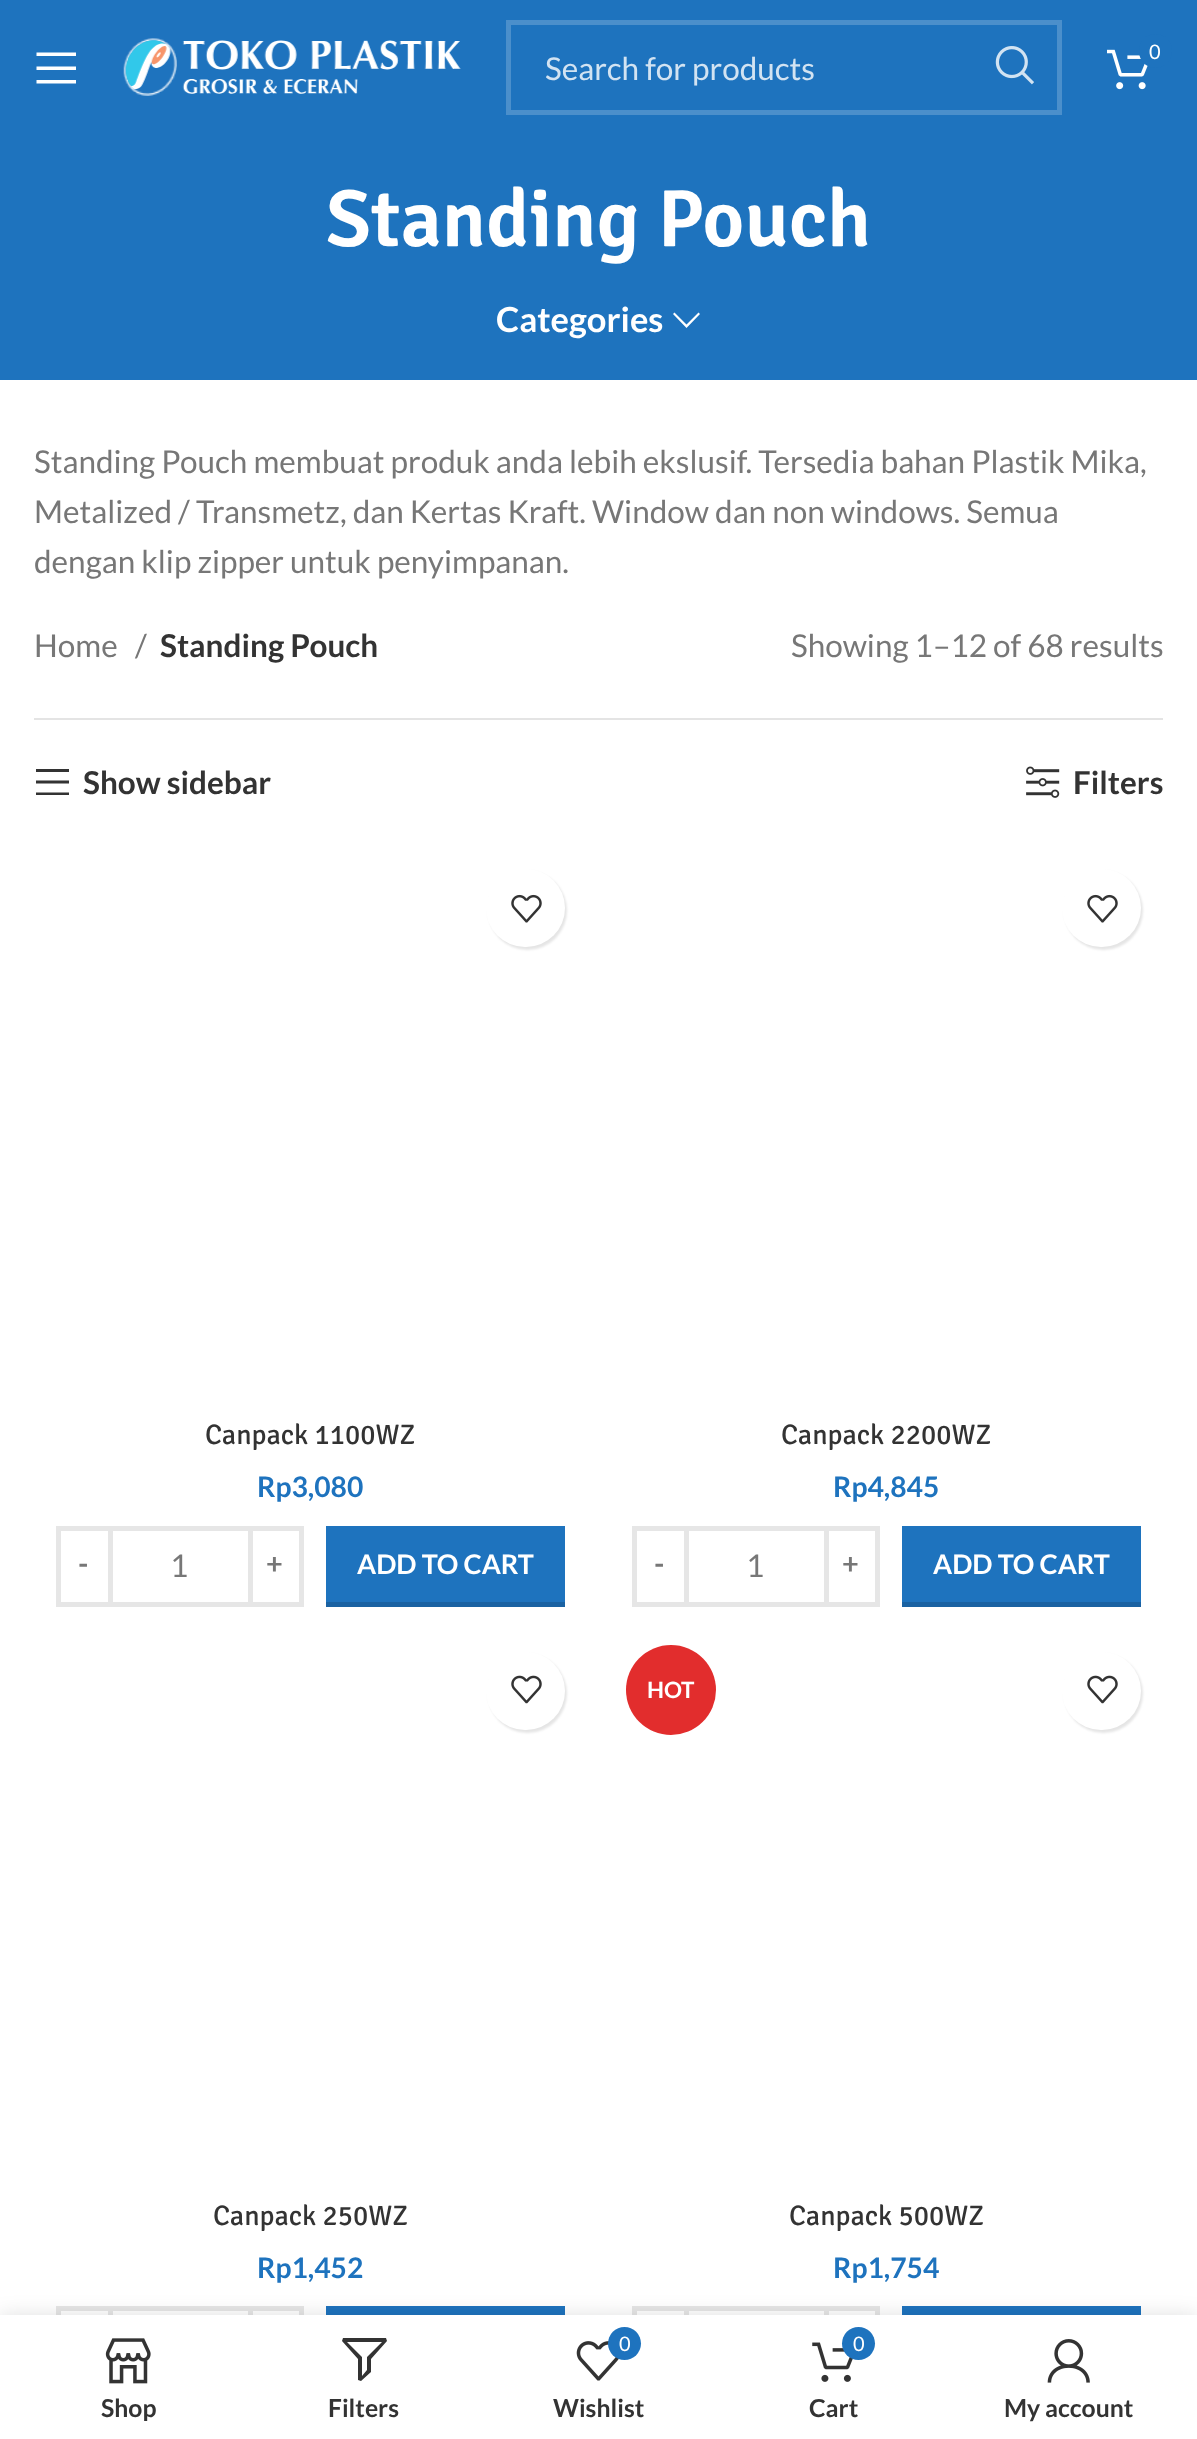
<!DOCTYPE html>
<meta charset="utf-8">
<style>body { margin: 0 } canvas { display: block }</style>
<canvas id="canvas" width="1197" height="2439"></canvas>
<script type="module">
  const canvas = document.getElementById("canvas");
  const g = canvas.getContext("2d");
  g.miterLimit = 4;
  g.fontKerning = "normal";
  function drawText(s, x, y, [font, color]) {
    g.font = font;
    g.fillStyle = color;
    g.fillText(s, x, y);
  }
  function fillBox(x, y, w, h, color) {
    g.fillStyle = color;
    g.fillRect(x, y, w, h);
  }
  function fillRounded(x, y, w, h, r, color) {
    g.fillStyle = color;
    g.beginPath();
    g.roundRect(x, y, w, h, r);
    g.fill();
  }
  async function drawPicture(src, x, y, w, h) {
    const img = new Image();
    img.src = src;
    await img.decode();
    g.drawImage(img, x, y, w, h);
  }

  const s1 = ["20px Lato", "#FFFFFF"];
  const s2 = ["31.5px Lato", "#D2E3F2"];
  const s3 = ["600 81px Signika", "#FFFFFF"];
  const s4 = ["bold 34.5px Lato", "#FFFFFF"];
  const s5 = ["31.5px Lato", "#777777"];
  const s6 = ["bold 31.5px Lato", "#333333"];
  const s7 = ["28.25px Signika", "#333333"];
  const s8 = ["bold 28.25px Lato", "#1E73BE"];
  const s9 = ["bold 29px Lato", "#777777"];
  const s10 = ["bold 27px Lato", "#FFFFFF"];
  const s11 = ["bold 22.5px Lato", "#FFFFFF"];
  const s12 = ["bold 24.75px Lato", "#333333"];

  fillBox(0, 0, 1197, 2439, "#FFFFFF");
  fillBox(0, 0, 1197, 380, "#1E73BE");
  g.fillStyle = "#FFFFFF";
  g.beginPath();
  g.moveTo(36.5, 56);
  g.lineTo(76, 56);
  g.lineTo(76, 52.5);
  g.lineTo(36.5, 52.5);
  g.closePath();
  g.moveTo(36.5, 70);
  g.lineTo(76, 70);
  g.lineTo(76, 66.5);
  g.lineTo(36.5, 66.5);
  g.closePath();
  g.moveTo(36.5, 83.5);
  g.lineTo(76, 83.5);
  g.lineTo(76, 80);
  g.lineTo(36.5, 80);
  g.closePath();
  g.fill();
  await drawPicture("pic1.png", 123, 38, 338, 58);
  await drawPicture("pic2.png", 1107, 49, 41, 41);
  fillRounded(1139, 34, 33, 34, 16.5, "#1E73BE");
  drawText("0", 1149, 59, s1);
  g.strokeStyle = "#4B8FCB";
  g.lineWidth = 5;
  g.strokeRect(508.5, 22.5, 551, 90);
  drawText("Search for products", 545, 80, s2);
  await drawPicture("pic3.png", 995, 46, 39, 39);
  drawText("Standing Pouch", 326, 246, s3);
  drawText("Categories", 496, 332, s4);
  g.beginPath();
  g.moveTo(698.5, 312.5);
  g.lineTo(686.5, 324.5);
  g.lineTo(674.5, 312.5);
  g.lineTo(673, 314);
  g.lineTo(686.5, 328);
  g.lineTo(700, 314);
  g.closePath();
  g.fill();
  drawText("Standing Pouch membuat produk anda lebih ekslusif. Tersedia bahan Plastik Mika,", 34, 473, s5);
  drawText("Metalized / Transmetz, dan Kertas Kraft. Window dan non windows. Semua", 34, 523, s5);
  drawText("dengan klip zipper untuk penyimpanan.", 34, 573, s5);
  fillBox(34, 718, 1129, 2, "#E4E4E4");
  drawText("Home", 34, 657, s5);
  drawText("/", 135, 657, s5);
  drawText("Standing Pouch", 160, 657, s6);
  drawText("Showing 1–12 of 68 results", 791, 657, s5);
  g.fillStyle = "#333333";
  g.beginPath();
  g.moveTo(36, 772);
  g.lineTo(69, 772);
  g.lineTo(69, 769);
  g.lineTo(36, 769);
  g.closePath();
  g.moveTo(36, 783.5);
  g.lineTo(69, 783.5);
  g.lineTo(69, 780.5);
  g.lineTo(36, 780.5);
  g.closePath();
  g.moveTo(36, 795);
  g.lineTo(69, 795);
  g.lineTo(69, 792.5);
  g.lineTo(36, 792.5);
  g.closePath();
  g.fill();
  drawText("Show sidebar", 83, 794, s6);
  await drawPicture("pic4.png", 1026, 766, 34, 32);
  drawText("Filters", 1073, 794, s6);
  g.fillStyle = "rgba(0, 0, 0, 0.1)";
  g.filter = "blur(1px)";
  g.beginPath();
  g.roundRect(488, 871, 79, 79, 39.5);
  g.fill();
  g.filter = "none";
  fillRounded(486, 869, 79, 78, 39, "#FFFFFF");
  await drawPicture("pic5.png", 511, 894, 31, 29);
  drawText("Canpack 1100WZ", 205, 1444, s7);
  drawText("Rp3,080", 257, 1497, s8);
  g.strokeStyle = "#E6E6E6";
  g.strokeRect(58.5, 1528.5, 52, 76);
  drawText("-", 78, 1574, s9);
  fillBox(113, 1526, 135, 5, "#E6E6E6");
  fillBox(113, 1602, 135, 5, "#E6E6E6");
  drawText("1", 170, 1577, s5);
  g.strokeRect(250.5, 1528.5, 51, 76);
  drawText("+", 266, 1574, s9);
  fillBox(326, 1526, 239, 76, "#1E73BE");
  fillBox(326, 1602, 239, 5, "#1A62A2");
  drawText("ADD TO CART", 357, 1574, s10);
  g.fillStyle = "rgba(0, 0, 0, 0.1)";
  g.filter = "blur(1px)";
  g.beginPath();
  g.roundRect(1064, 871, 79, 79, 39.5);
  g.fill();
  g.filter = "none";
  fillRounded(1062, 869, 79, 78, 39, "#FFFFFF");
  await drawPicture("pic5.png", 1087, 894, 31, 29);
  drawText("Canpack 2200WZ", 781, 1444, s7);
  drawText("Rp4,845", 833, 1497, s8);
  g.strokeRect(634.5, 1528.5, 52, 76);
  drawText("-", 654, 1574, s9);
  fillBox(689, 1526, 135, 5, "#E6E6E6");
  fillBox(689, 1602, 135, 5, "#E6E6E6");
  drawText("1", 746, 1577, s5);
  g.strokeRect(826.5, 1528.5, 51, 76);
  drawText("+", 842, 1574, s9);
  fillBox(902, 1526, 239, 76, "#1E73BE");
  fillBox(902, 1602, 239, 5, "#1A62A2");
  drawText("ADD TO CART", 933, 1574, s10);
  g.fillStyle = "rgba(0, 0, 0, 0.1)";
  g.filter = "blur(1px)";
  g.beginPath();
  g.roundRect(488, 1654, 79, 79, 39.5);
  g.fill();
  g.filter = "none";
  fillRounded(486, 1652, 79, 78, 39, "#FFFFFF");
  await drawPicture("pic6.png", 511, 1675, 31, 29);
  drawText("Canpack 250WZ", 213, 2225, s7);
  drawText("Rp1,452", 257, 2278, s8);
  g.strokeRect(58.5, 2308.5, 52, 76);
  fillBox(113, 2306, 135, 5, "#E6E6E6");
  g.strokeRect(250.5, 2308.5, 51, 76);
  fillBox(326, 2306, 239, 9, "#1E73BE");
  g.fillStyle = "#E22D2D";
  g.beginPath();
  g.arc(671, 1690, 45, 0, Math.PI * 2);
  g.fill();
  drawText("HOT", 647, 1698, s11);
  g.fillStyle = "rgba(0, 0, 0, 0.1)";
  g.filter = "blur(1px)";
  g.beginPath();
  g.roundRect(1064, 1654, 79, 79, 39.5);
  g.fill();
  g.filter = "none";
  fillRounded(1062, 1652, 79, 78, 39, "#FFFFFF");
  await drawPicture("pic6.png", 1087, 1675, 31, 29);
  drawText("Canpack 500WZ", 789, 2225, s7);
  drawText("Rp1,754", 833, 2278, s8);
  g.strokeRect(634.5, 2308.5, 52, 76);
  fillBox(689, 2306, 135, 5, "#E6E6E6");
  g.strokeRect(826.5, 2308.5, 51, 76);
  fillBox(902, 2306, 239, 9, "#1E73BE");
  g.fillStyle = "rgba(0, 0, 0, 0.12)";
  g.filter = "blur(10px)";
  g.beginPath();
  g.rect(0, 2315, 1197, 124);
  g.fill();
  g.filter = "none";
  fillBox(0, 2315, 1197, 124, "#FFFFFF");
  await drawPicture("pic7.png", 105, 2338, 46, 46);
  g.save();
  g.beginPath();
  g.rect(34, 2392, 189, 29);
  g.clip();
  drawText("Shop", 101, 2417, s12);
  g.restore();
  g.fillStyle = "#333333";
  g.beginPath();
  g.moveTo(343, 2338);
  g.lineTo(342, 2341);
  g.lineTo(358, 2359);
  g.lineTo(358, 2380);
  g.lineTo(361, 2381);
  g.lineTo(371, 2372);
  g.lineTo(371, 2359);
  g.lineTo(387, 2341);
  g.lineTo(386, 2338);
  g.closePath();
  g.moveTo(347, 2342);
  g.lineTo(382, 2342);
  g.lineTo(367, 2357);
  g.lineTo(367, 2370);
  g.lineTo(362, 2376);
  g.lineTo(362, 2357);
  g.closePath();
  g.fill();
  drawText("Filters", 328, 2417, s12);
  await drawPicture("pic8.png", 576, 2341, 43, 40);
  g.fillStyle = "#1E73BE";
  g.beginPath();
  g.arc(624.5, 2343.5, 16.5, 0, Math.PI * 2);
  g.fill();
  drawText("0", 619, 2351, s1);
  drawText("Wishlist", 553, 2417, s12);
  await drawPicture("pic9.png", 812, 2342, 41, 40);
  g.fillStyle = "#1E73BE";
  g.beginPath();
  g.arc(858.5, 2343.5, 16.5, 0, Math.PI * 2);
  g.fill();
  drawText("0", 853, 2351, s1);
  drawText("Cart", 809, 2417, s12);
  await drawPicture("pic10.png", 1047, 2339, 43, 44);
  drawText("My account", 1004, 2417, s12);
</script>
